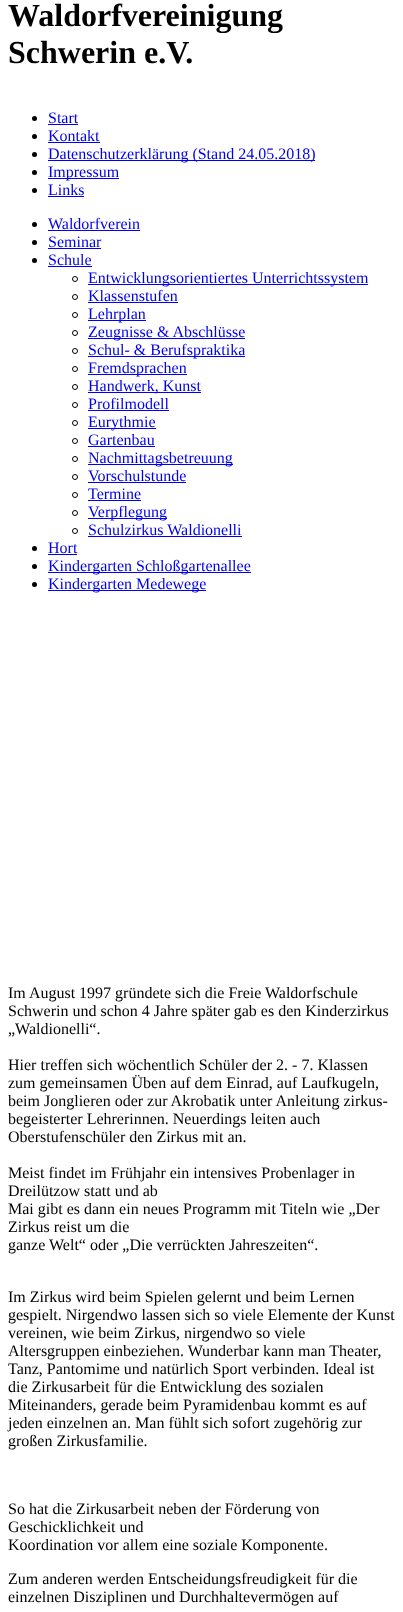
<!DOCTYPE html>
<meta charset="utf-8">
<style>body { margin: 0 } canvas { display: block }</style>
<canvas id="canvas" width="403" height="1612"></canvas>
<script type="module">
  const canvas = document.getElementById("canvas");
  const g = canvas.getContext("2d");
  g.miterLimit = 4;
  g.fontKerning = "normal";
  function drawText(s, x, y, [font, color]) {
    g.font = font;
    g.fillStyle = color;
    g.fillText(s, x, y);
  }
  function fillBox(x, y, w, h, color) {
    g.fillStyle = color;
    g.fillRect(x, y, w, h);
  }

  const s1 = ["bold 32px Liberation Serif", "#000000"];
  const s2 = ["16px Liberation Serif", "#0000EE"];
  const s3 = ["16px Liberation Serif", "#000000"];

  fillBox(0, 0, 403, 1612, "#FFFFFF");
  drawText("Waldorfvereinigung", 8, 26, s1);
  drawText("Schwerin e.V.", 8, 63, s1);
  g.beginPath();
  g.arc(34.5, 118.5, 2.5, 0, Math.PI * 2);
  g.fill();
  drawText("Start", 48, 123, s2);
  fillBox(48, 124, 30, 1, "#0000EE");
  g.fillStyle = "#000000";
  g.beginPath();
  g.arc(34.5, 136.5, 2.5, 0, Math.PI * 2);
  g.fill();
  drawText("Kontakt", 48, 141, s2);
  fillBox(48, 142, 52, 1, "#0000EE");
  g.fillStyle = "#000000";
  g.beginPath();
  g.arc(34.5, 154.5, 2.5, 0, Math.PI * 2);
  g.fill();
  fillBox(48, 160, 267, 1, "#0000EE");
  drawText("Datenschutzerklärung (Stand 24.05.2018)", 48, 159, s2);
  g.fillStyle = "#000000";
  g.beginPath();
  g.arc(34.5, 172.5, 2.5, 0, Math.PI * 2);
  g.fill();
  fillBox(48, 178, 71, 1, "#0000EE");
  drawText("Impressum", 48, 177, s2);
  g.fillStyle = "#000000";
  g.beginPath();
  g.arc(34.5, 190.5, 2.5, 0, Math.PI * 2);
  g.fill();
  drawText("Links", 48, 195, s2);
  fillBox(48, 196, 36, 1, "#0000EE");
  g.fillStyle = "#000000";
  g.beginPath();
  g.arc(34.5, 224.5, 2.5, 0, Math.PI * 2);
  g.fill();
  drawText("Waldorfverein", 48, 229, s2);
  fillBox(48, 230, 92, 1, "#0000EE");
  g.fillStyle = "#000000";
  g.beginPath();
  g.arc(34.5, 242.5, 2.5, 0, Math.PI * 2);
  g.fill();
  drawText("Seminar", 48, 247, s2);
  fillBox(48, 248, 53, 1, "#0000EE");
  g.fillStyle = "#000000";
  g.beginPath();
  g.arc(34.5, 260.5, 2.5, 0, Math.PI * 2);
  g.fill();
  drawText("Schule", 48, 265, s2);
  fillBox(48, 266, 44, 1, "#0000EE");
  g.beginPath();
  g.arc(75, 279, 2.5, 0, Math.PI * 2);
  g.strokeStyle = "#000000";
  g.stroke();
  fillBox(88, 284, 280, 1, "#0000EE");
  drawText("Entwicklungsorientiertes Unterrichtssystem", 88, 283, s2);
  g.beginPath();
  g.arc(75, 297, 2.5, 0, Math.PI * 2);
  g.stroke();
  drawText("Klassenstufen", 88, 301, s2);
  fillBox(88, 302, 90, 1, "#0000EE");
  g.beginPath();
  g.arc(75, 315, 2.5, 0, Math.PI * 2);
  g.stroke();
  fillBox(88, 320, 58, 1, "#0000EE");
  drawText("Lehrplan", 88, 319, s2);
  g.beginPath();
  g.arc(75, 333, 2.5, 0, Math.PI * 2);
  g.stroke();
  fillBox(88, 338, 157, 1, "#0000EE");
  drawText("Zeugnisse & Abschlüsse", 88, 337, s2);
  g.beginPath();
  g.arc(75, 351, 2.5, 0, Math.PI * 2);
  g.stroke();
  fillBox(88, 356, 157, 1, "#0000EE");
  drawText("Schul- & Berufspraktika", 88, 355, s2);
  g.beginPath();
  g.arc(75, 369, 2.5, 0, Math.PI * 2);
  g.stroke();
  fillBox(88, 374, 99, 1, "#0000EE");
  drawText("Fremdsprachen", 88, 373, s2);
  g.beginPath();
  g.arc(75, 387, 2.5, 0, Math.PI * 2);
  g.stroke();
  fillBox(88, 392, 113, 1, "#0000EE");
  drawText("Handwerk, Kunst", 88, 391, s2);
  g.beginPath();
  g.arc(75, 405, 2.5, 0, Math.PI * 2);
  g.stroke();
  drawText("Profilmodell", 88, 409, s2);
  fillBox(88, 410, 81, 1, "#0000EE");
  g.beginPath();
  g.arc(75, 423, 2.5, 0, Math.PI * 2);
  g.stroke();
  fillBox(88, 428, 68, 1, "#0000EE");
  drawText("Eurythmie", 88, 427, s2);
  g.beginPath();
  g.arc(75, 441, 2.5, 0, Math.PI * 2);
  g.stroke();
  drawText("Gartenbau", 88, 445, s2);
  fillBox(88, 446, 67, 1, "#0000EE");
  g.beginPath();
  g.arc(75, 459, 2.5, 0, Math.PI * 2);
  g.stroke();
  fillBox(88, 464, 145, 1, "#0000EE");
  drawText("Nachmittagsbetreuung", 88, 463, s2);
  g.beginPath();
  g.arc(75, 477, 2.5, 0, Math.PI * 2);
  g.stroke();
  drawText("Vorschulstunde", 88, 481, s2);
  fillBox(88, 482, 98, 1, "#0000EE");
  g.beginPath();
  g.arc(75, 495, 2.5, 0, Math.PI * 2);
  g.stroke();
  drawText("Termine", 88, 499, s2);
  fillBox(88, 500, 53, 1, "#0000EE");
  g.beginPath();
  g.arc(75, 513, 2.5, 0, Math.PI * 2);
  g.stroke();
  fillBox(88, 518, 79, 1, "#0000EE");
  drawText("Verpflegung", 88, 517, s2);
  g.beginPath();
  g.arc(75, 531, 2.5, 0, Math.PI * 2);
  g.stroke();
  drawText("Schulzirkus Waldionelli", 88, 535, s2);
  fillBox(88, 536, 154, 1, "#0000EE");
  g.fillStyle = "#000000";
  g.beginPath();
  g.arc(34.5, 548.5, 2.5, 0, Math.PI * 2);
  g.fill();
  drawText("Hort", 48, 553, s2);
  fillBox(48, 554, 29, 1, "#0000EE");
  g.fillStyle = "#000000";
  g.beginPath();
  g.arc(34.5, 566.5, 2.5, 0, Math.PI * 2);
  g.fill();
  fillBox(48, 572, 203, 1, "#0000EE");
  drawText("Kindergarten Schloßgartenallee", 48, 571, s2);
  g.fillStyle = "#000000";
  g.beginPath();
  g.arc(34.5, 584.5, 2.5, 0, Math.PI * 2);
  g.fill();
  fillBox(48, 590, 158, 1, "#0000EE");
  drawText("Kindergarten Medewege", 48, 589, s2);
  drawText("Im August 1997 gründete sich die Freie Waldorfschule", 8, 998, s3);
  drawText("Schwerin und schon 4 Jahre später gab es den Kinderzirkus", 8, 1016, s3);
  drawText("„Waldionelli“.", 8, 1034, s3);
  drawText("Hier treffen sich wöchentlich Schüler der 2. - 7. Klassen", 8, 1070, s3);
  drawText("zum gemeinsamen Üben auf dem Einrad, auf Laufkugeln,", 8, 1088, s3);
  drawText("beim Jonglieren oder zur Akrobatik unter Anleitung zirkus-", 8, 1106, s3);
  drawText("begeisterter Lehrerinnen. Neuerdings leiten auch", 8, 1124, s3);
  drawText("Oberstufenschüler den Zirkus mit an.", 8, 1142, s3);
  drawText("Meist findet im Frühjahr ein intensives Probenlager in", 8, 1178, s3);
  drawText("Dreilützow statt und ab", 8, 1196, s3);
  drawText("Mai gibt es dann ein neues Programm mit Titeln wie „Der", 8, 1214, s3);
  drawText("Zirkus reist um die", 8, 1232, s3);
  drawText("ganze Welt“ oder „Die verrückten Jahreszeiten“.", 8, 1250, s3);
  drawText("Im Zirkus wird beim Spielen gelernt und beim Lernen", 8, 1302, s3);
  drawText("gespielt. Nirgendwo lassen sich so viele Elemente der Kunst", 8, 1320, s3);
  drawText("vereinen, wie beim Zirkus, nirgendwo so viele", 8, 1338, s3);
  drawText("Altersgruppen einbeziehen. Wunderbar kann man Theater,", 8, 1356, s3);
  drawText("Tanz, Pantomime und natürlich Sport verbinden. Ideal ist", 8, 1374, s3);
  drawText("die Zirkusarbeit für die Entwicklung des sozialen", 8, 1392, s3);
  drawText("Miteinanders, gerade beim Pyramidenbau kommt es auf", 8, 1410, s3);
  drawText("jeden einzelnen an. Man fühlt sich sofort zugehörig zur", 8, 1428, s3);
  drawText("großen Zirkusfamilie.", 8, 1446, s3);
  drawText("So hat die Zirkusarbeit neben der Förderung von", 8, 1514, s3);
  drawText("Geschicklichkeit und", 8, 1532, s3);
  drawText("Koordination vor allem eine soziale Komponente.", 8, 1550, s3);
  drawText("Zum anderen werden Entscheidungsfreudigkeit für die", 8, 1584, s3);
  drawText("einzelnen Disziplinen und Durchhaltevermögen auf", 8, 1602, s3);
</script>
